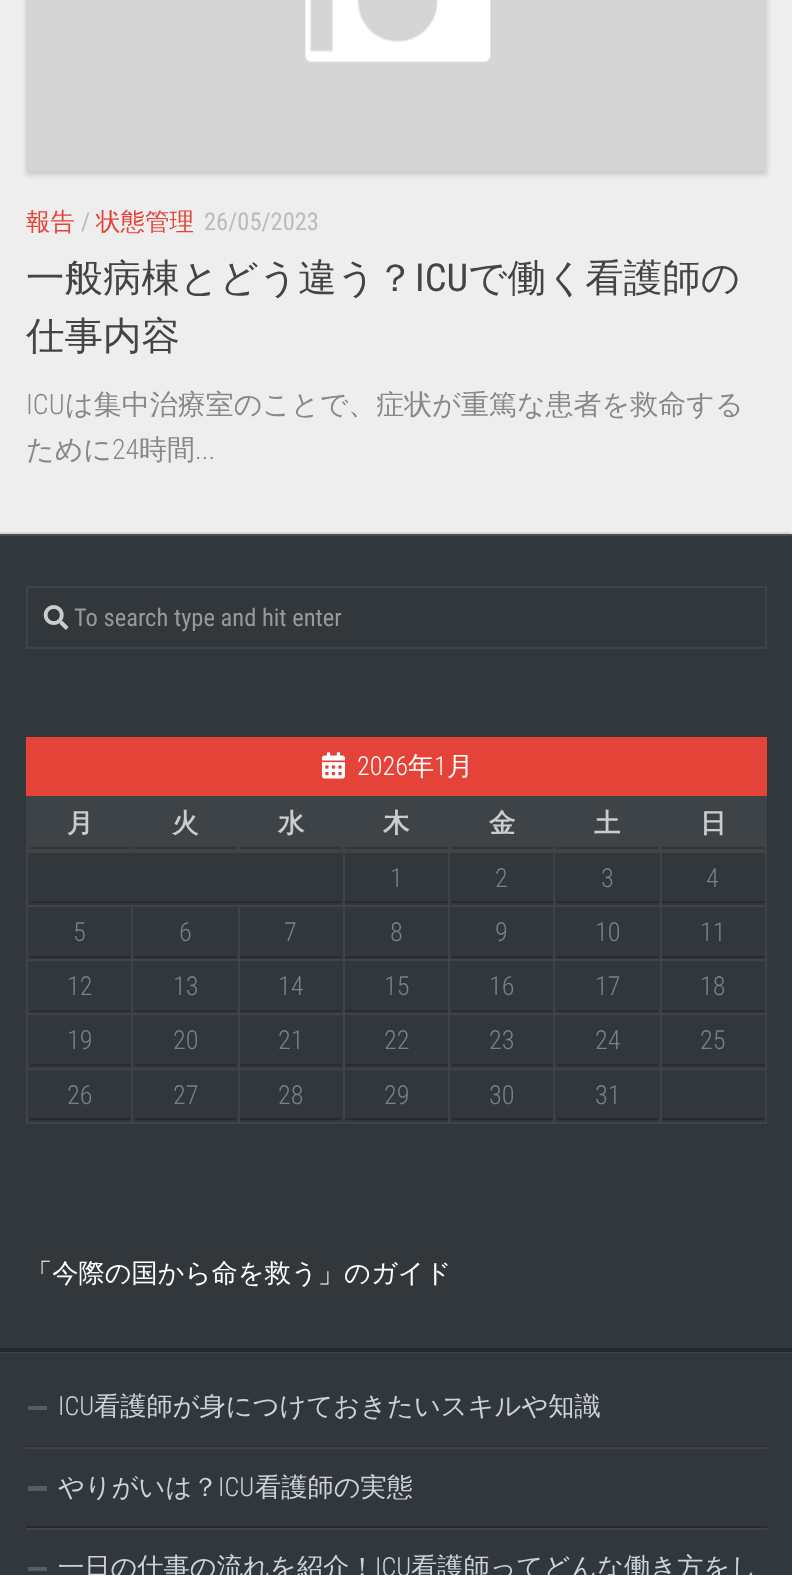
<!DOCTYPE html>
<meta charset="utf-8">
<style>body { margin: 0 } canvas { display: block }</style>
<canvas id="canvas" width="792" height="1575"></canvas>
<script type="module">
  const canvas = document.getElementById("canvas");
  const g = canvas.getContext("2d");
  g.miterLimit = 4;
  g.fontKerning = "normal";
  function drawText(s, x, y, [font, color]) {
    g.font = font;
    g.fillStyle = color;
    g.fillText(s, x, y);
  }
  function fillBox(x, y, w, h, color) {
    g.fillStyle = color;
    g.fillRect(x, y, w, h);
  }
  async function drawPicture(src, x, y, w, h) {
    const img = new Image();
    img.src = src;
    await img.decode();
    g.drawImage(img, x, y, w, h);
  }

  const s1 = ["500 24.5px WenQuanYi Zen Hei", "#E64338"];
  const s2 = ["24.5px Roboto Condensed", "#BBBBBB"];
  const s3 = ["500 38.5px WenQuanYi Zen Hei", "#444444"];
  const s4 = ["38.5px Roboto Condensed", "#444444"];
  const s5 = ["300 28px Roboto Condensed", "#888888"];
  const s6 = ["500 28px WenQuanYi Zen Hei", "#888888"];
  const s7 = ["24.5px Roboto Condensed", "#999999"];
  const s8 = ["300 26.25px Roboto Condensed", "#FFFFFF"];
  const s9 = ["500 26.25px WenQuanYi Zen Hei", "#FFFFFF"];
  const s10 = ["bold 26.25px WenQuanYi Zen Hei", "#CCCCCC"];
  const s11 = ["300 26.25px Roboto Condensed", "#79828B"];
  const s12 = ["300 26.25px Roboto Condensed", "#CCD2D8"];
  const s13 = ["500 26.25px WenQuanYi Zen Hei", "#CCD2D8"];

  fillBox(0, 0, 792, 1575, "#EEEEEE");
  g.fillStyle = "rgba(0, 0, 0, 0.15)";
  g.filter = "blur(2.5px)";
  g.beginPath();
  g.rect(26, -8, 741, 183);
  g.fill();
  g.filter = "none";
  await drawPicture("pic1.png", 26, 0, 741, 171);
  drawText("報告", 26, 230, s1);
  drawText("/", 81, 230, s2);
  drawText("状態管理", 96, 230, s1);
  drawText("26/05/2023", 204, 230, s2);
  drawText("一般病棟とどう違う？", 26, 291, s3);
  drawText("ICU", 415, 291, s4);
  drawText("で働く看護師の", 468, 291, s3);
  drawText("仕事内容", 26, 349, s3);
  drawText("ICU", 26, 414, s5);
  drawText("は集中治療室のことで、症状が重篤な患者を救命する", 65, 414, s6);
  drawText("ために", 26, 459, s6);
  drawText("24", 112, 459, s5);
  drawText("時間", 139, 459, s6);
  drawText("...", 195, 459, s5);
  g.fillStyle = "#D6D6D6";
  g.beginPath();
  g.moveTo(-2, 532);
  g.lineTo(-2, 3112);
  g.lineTo(0, 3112);
  g.lineTo(0, 534);
  g.lineTo(791, 534);
  g.lineTo(791, 532);
  g.closePath();
  g.fill();
  fillBox(0, 536, 792, 1039, "#32373C");
  fillBox(0, 534, 792, 2, "#474B50");
  g.strokeStyle = "#3E4347";
  g.lineWidth = 2;
  g.strokeRect(27, 587, 739, 61);
  await drawPicture("pic2.png", 43, 605, 26, 25);
  drawText("To search type and hit enter", 74, 626, s7);
  fillBox(26, 737, 741, 59, "#E64338");
  await drawPicture("pic3.png", 322, 752, 23, 27);
  drawText("2026", 357, 775, s8);
  drawText("年", 408, 775, s9);
  drawText("1", 434, 775, s8);
  drawText("月", 447, 775, s9);
  fillBox(28, 796, 739, 55, "#3E4347");
  fillBox(30, 847, 101, 2, "#323639");
  fillBox(660, 851, 107, 2, "#3E4347");
  fillBox(660, 905, 107, 2, "#3E4347");
  fillBox(660, 959, 107, 2, "#3E4347");
  fillBox(660, 1013, 107, 2, "#3E4347");
  fillBox(660, 1068, 107, 2, "#3E4347");
  fillBox(765, 1068, 2, 56, "#3E4347");
  fillBox(660, 1122, 107, 2, "#3E4347");
  fillBox(660, 1068, 2, 56, "#3E4347");
  fillBox(553, 1068, 109, 2, "#3E4347");
  fillBox(660, 1013, 2, 56, "#3E4347");
  fillBox(553, 1013, 109, 2, "#3E4347");
  fillBox(660, 959, 2, 56, "#3E4347");
  fillBox(553, 959, 109, 2, "#3E4347");
  fillBox(660, 905, 2, 56, "#3E4347");
  fillBox(553, 905, 109, 2, "#3E4347");
  fillBox(660, 851, 2, 56, "#3E4347");
  fillBox(553, 851, 109, 2, "#3E4347");
  fillBox(553, 1122, 109, 2, "#3E4347");
  fillBox(553, 1068, 2, 56, "#3E4347");
  fillBox(448, 1068, 107, 2, "#3E4347");
  fillBox(553, 1013, 2, 56, "#3E4347");
  fillBox(448, 1013, 107, 2, "#3E4347");
  fillBox(553, 959, 2, 56, "#3E4347");
  fillBox(448, 959, 107, 2, "#3E4347");
  fillBox(553, 905, 2, 56, "#3E4347");
  fillBox(448, 905, 107, 2, "#3E4347");
  fillBox(553, 851, 2, 56, "#3E4347");
  fillBox(448, 851, 107, 2, "#3E4347");
  fillBox(448, 1122, 107, 2, "#3E4347");
  fillBox(448, 1068, 2, 56, "#3E4347");
  fillBox(343, 1068, 107, 2, "#3E4347");
  fillBox(448, 1013, 2, 56, "#3E4347");
  fillBox(343, 1013, 107, 2, "#3E4347");
  fillBox(448, 959, 2, 56, "#3E4347");
  fillBox(343, 959, 107, 2, "#3E4347");
  fillBox(448, 905, 2, 56, "#3E4347");
  fillBox(343, 905, 107, 2, "#3E4347");
  fillBox(448, 851, 2, 56, "#3E4347");
  fillBox(343, 851, 107, 2, "#3E4347");
  fillBox(343, 1122, 107, 2, "#3E4347");
  fillBox(343, 1068, 2, 56, "#3E4347");
  fillBox(238, 1068, 107, 2, "#3E4347");
  fillBox(343, 1013, 2, 56, "#3E4347");
  fillBox(238, 1013, 107, 2, "#3E4347");
  fillBox(343, 959, 2, 56, "#3E4347");
  fillBox(238, 959, 107, 2, "#3E4347");
  fillBox(343, 905, 2, 56, "#3E4347");
  fillBox(238, 905, 107, 2, "#3E4347");
  fillBox(343, 851, 2, 56, "#3E4347");
  fillBox(26, 851, 319, 2, "#3E4347");
  fillBox(238, 1122, 107, 2, "#3E4347");
  fillBox(238, 1068, 2, 56, "#3E4347");
  fillBox(131, 1068, 109, 2, "#3E4347");
  fillBox(238, 1013, 2, 56, "#3E4347");
  fillBox(131, 1013, 109, 2, "#3E4347");
  fillBox(238, 959, 2, 56, "#3E4347");
  fillBox(131, 959, 109, 2, "#3E4347");
  fillBox(238, 905, 2, 56, "#3E4347");
  fillBox(131, 905, 109, 2, "#3E4347");
  fillBox(131, 1122, 109, 2, "#3E4347");
  fillBox(131, 1068, 2, 56, "#3E4347");
  fillBox(26, 1068, 107, 2, "#3E4347");
  fillBox(131, 1013, 2, 56, "#3E4347");
  fillBox(26, 1013, 107, 2, "#3E4347");
  fillBox(131, 959, 2, 56, "#3E4347");
  fillBox(26, 959, 107, 2, "#3E4347");
  fillBox(131, 905, 2, 56, "#3E4347");
  fillBox(26, 905, 107, 2, "#3E4347");
  fillBox(26, 1122, 107, 2, "#3E4347");
  fillBox(26, 1068, 2, 56, "#3E4347");
  fillBox(26, 1013, 2, 56, "#3E4347");
  fillBox(26, 959, 2, 56, "#3E4347");
  fillBox(26, 905, 2, 56, "#3E4347");
  fillBox(26, 851, 2, 56, "#3E4347");
  fillBox(26, 796, 2, 56, "#3E4347");
  drawText("月", 67, 832, s10);
  fillBox(135, 847, 101, 2, "#323639");
  drawText("火", 172, 832, s10);
  fillBox(240, 847, 101, 2, "#323639");
  drawText("水", 278, 832, s10);
  fillBox(345, 847, 103, 2, "#323639");
  drawText("木", 383, 832, s10);
  fillBox(452, 847, 101, 2, "#323639");
  drawText("金", 489, 832, s10);
  fillBox(557, 847, 101, 2, "#323639");
  drawText("土", 594, 832, s10);
  fillBox(662, 847, 103, 2, "#323639");
  drawText("日", 700, 832, s10);
  fillBox(30, 901, 311, 2, "#282C30");
  fillBox(345, 901, 103, 2, "#282C30");
  drawText("1", 390, 887, s11);
  fillBox(452, 901, 101, 2, "#282C30");
  drawText("2", 495, 887, s11);
  fillBox(557, 901, 101, 2, "#282C30");
  drawText("3", 601, 887, s11);
  fillBox(662, 901, 103, 2, "#282C30");
  fillBox(765, 1013, 2, 56, "#3E4347");
  fillBox(765, 959, 2, 56, "#3E4347");
  fillBox(765, 905, 2, 56, "#3E4347");
  fillBox(765, 851, 2, 56, "#3E4347");
  drawText("4", 706, 887, s11);
  fillBox(30, 956, 101, 2, "#282C30");
  drawText("5", 73, 941, s11);
  fillBox(135, 956, 101, 2, "#282C30");
  drawText("6", 179, 941, s11);
  fillBox(240, 956, 101, 2, "#282C30");
  drawText("7", 284, 941, s11);
  fillBox(345, 956, 103, 2, "#282C30");
  drawText("8", 390, 941, s11);
  fillBox(452, 956, 101, 2, "#282C30");
  drawText("9", 495, 941, s11);
  fillBox(557, 956, 101, 2, "#282C30");
  drawText("10", 595, 941, s11);
  fillBox(662, 956, 103, 2, "#282C30");
  drawText("11", 700, 941, s11);
  fillBox(30, 1010, 101, 2, "#282C30");
  drawText("12", 67, 995, s11);
  fillBox(135, 1010, 101, 2, "#282C30");
  drawText("13", 173, 995, s11);
  fillBox(240, 1010, 101, 2, "#282C30");
  drawText("14", 278, 995, s11);
  fillBox(345, 1010, 103, 2, "#282C30");
  drawText("15", 384, 995, s11);
  fillBox(452, 1010, 101, 2, "#282C30");
  drawText("16", 489, 995, s11);
  fillBox(557, 1010, 101, 2, "#282C30");
  drawText("17", 595, 995, s11);
  fillBox(662, 1010, 103, 2, "#282C30");
  drawText("18", 700, 995, s11);
  fillBox(30, 1064, 101, 2, "#282C30");
  drawText("19", 67, 1049, s11);
  fillBox(135, 1064, 101, 2, "#282C30");
  drawText("20", 173, 1049, s11);
  fillBox(240, 1064, 101, 2, "#282C30");
  drawText("21", 278, 1049, s11);
  fillBox(345, 1064, 103, 2, "#282C30");
  drawText("22", 384, 1049, s11);
  fillBox(452, 1064, 101, 2, "#282C30");
  drawText("23", 489, 1049, s11);
  fillBox(557, 1064, 101, 2, "#282C30");
  drawText("24", 595, 1049, s11);
  fillBox(662, 1064, 103, 2, "#282C30");
  drawText("25", 700, 1049, s11);
  fillBox(30, 1118, 101, 2, "#282C30");
  drawText("26", 67, 1104, s11);
  fillBox(135, 1118, 101, 2, "#282C30");
  drawText("27", 173, 1104, s11);
  fillBox(240, 1118, 101, 2, "#282C30");
  drawText("28", 278, 1104, s11);
  fillBox(345, 1118, 103, 2, "#282C30");
  drawText("29", 384, 1104, s11);
  fillBox(452, 1118, 101, 2, "#282C30");
  drawText("30", 489, 1104, s11);
  fillBox(557, 1118, 101, 2, "#282C30");
  drawText("31", 595, 1104, s11);
  fillBox(662, 1118, 103, 2, "#282C30");
  fillBox(0, 1352, 792, 1, "#3E4348");
  fillBox(0, 1348, 792, 4, "#23282D");
  drawText("「今際の国から命を救う」のガイド", 26, 1282, s9);
  fillBox(26, 1446, 741, 1, "#282C30");
  fillBox(26, 1447, 741, 2, "#3E4347");
  fillBox(28, 1406, 19, 4, "#565D64");
  drawText("ICU", 58, 1415, s12);
  drawText("看護師が身につけておきたいスキルや知識", 94, 1415, s13);
  fillBox(26, 1526, 741, 2, "#282C30");
  fillBox(26, 1528, 741, 2, "#3E4347");
  fillBox(28, 1486, 19, 5, "#565D64");
  drawText("やりがいは？", 58, 1496, s13);
  drawText("ICU", 218, 1496, s12);
  drawText("看護師の実態", 255, 1496, s13);
  fillBox(28, 1567, 19, 4, "#565D64");
  drawText("一日の仕事の流れを紹介！", 58, 1576, s13);
  drawText("ICU", 375, 1576, s12);
  drawText("看護師ってどんな働き方をし", 411, 1576, s13);
</script>
